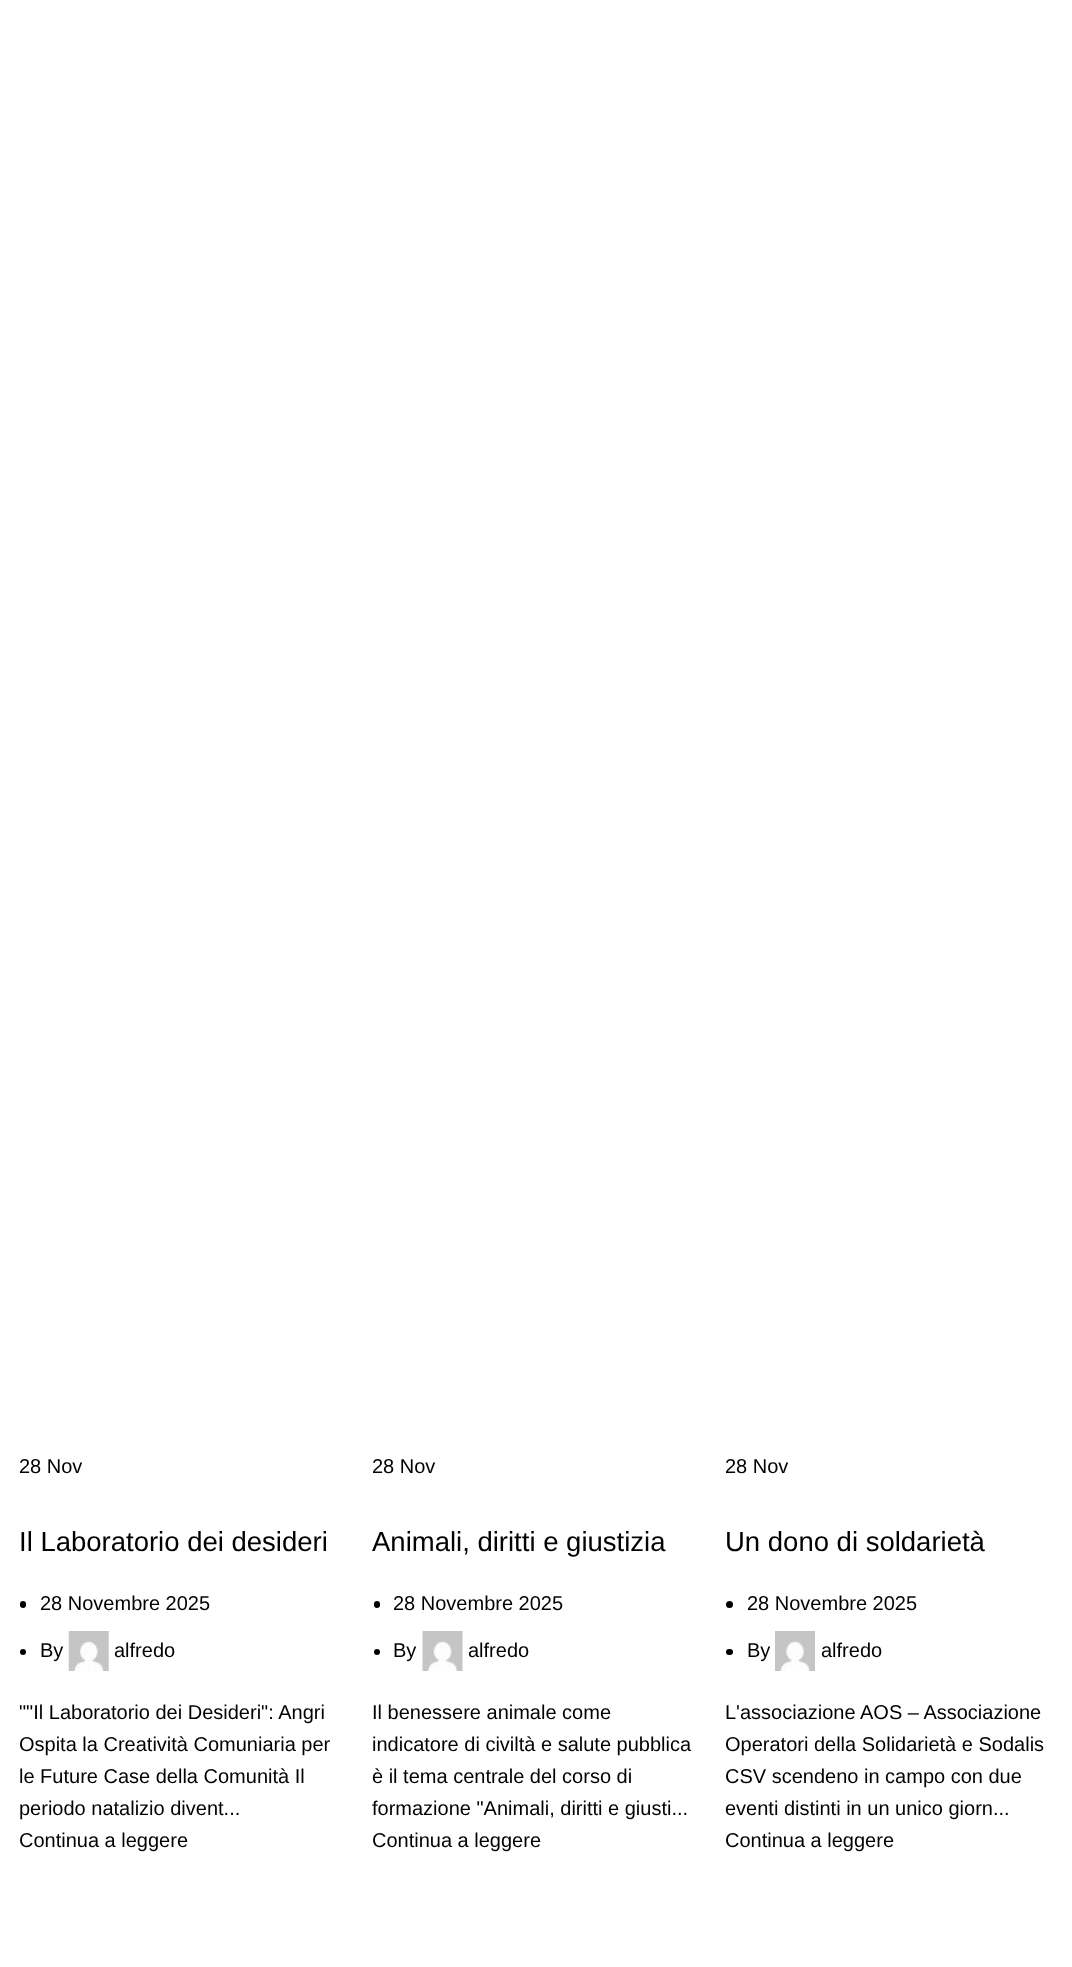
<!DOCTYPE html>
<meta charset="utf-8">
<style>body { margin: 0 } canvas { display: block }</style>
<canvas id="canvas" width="1072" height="1967"></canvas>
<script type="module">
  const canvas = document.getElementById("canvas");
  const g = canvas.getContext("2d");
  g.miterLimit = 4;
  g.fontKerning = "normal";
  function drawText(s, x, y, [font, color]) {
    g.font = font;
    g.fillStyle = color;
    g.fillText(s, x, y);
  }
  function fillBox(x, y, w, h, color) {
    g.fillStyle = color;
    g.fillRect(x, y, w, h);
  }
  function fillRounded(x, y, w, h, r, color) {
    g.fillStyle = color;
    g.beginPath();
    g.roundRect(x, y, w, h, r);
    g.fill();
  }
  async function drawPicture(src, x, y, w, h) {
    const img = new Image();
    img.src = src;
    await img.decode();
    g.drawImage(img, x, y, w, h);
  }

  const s1 = ["20px Liberation Sans", "#000000"];
  const s2 = ["27.5px Liberation Sans", "#000000"];

  fillBox(0, 0, 1072, 1967, "#FFFFFF");
  drawText("28 Nov", 19, 1473, s1);
  drawText("Il Laboratorio dei desideri", 19, 1551, s2);
  fillRounded(20, 1601, 6, 7, 3, "#000000");
  drawText("28 Novembre 2025", 40, 1610, s1);
  g.beginPath();
  g.arc(23, 1652, 3, 0, Math.PI * 2);
  g.fill();
  drawText("By", 40, 1657, s1);
  await drawPicture("pic1.png", 68, 1631, 41, 40);
  drawText("alfredo", 114, 1657, s1);
  drawText("\"\"Il Laboratorio dei Desideri\": Angri", 19, 1719, s1);
  drawText("Ospita la Creatività Comuniaria per", 19, 1751, s1);
  drawText("le Future Case della Comunità Il", 19, 1783, s1);
  drawText("periodo natalizio divent...", 19, 1815, s1);
  drawText("Continua a leggere", 19, 1847, s1);
  drawText("28 Nov", 372, 1473, s1);
  drawText("Animali, diritti e giustizia", 372, 1551, s2);
  fillRounded(374, 1601, 6, 7, 3, "#000000");
  drawText("28 Novembre 2025", 393, 1610, s1);
  g.beginPath();
  g.arc(377, 1652, 3, 0, Math.PI * 2);
  g.fill();
  drawText("By", 393, 1657, s1);
  await drawPicture("pic2.png", 422, 1631, 41, 40);
  drawText("alfredo", 468, 1657, s1);
  drawText("Il benessere animale come", 372, 1719, s1);
  drawText("indicatore di civiltà e salute pubblica", 372, 1751, s1);
  drawText("è il tema centrale del corso di", 372, 1783, s1);
  drawText("formazione \"Animali, diritti e giusti...", 372, 1815, s1);
  drawText("Continua a leggere", 372, 1847, s1);
  drawText("28 Nov", 725, 1473, s1);
  drawText("Un dono di soldarietà", 725, 1551, s2);
  g.beginPath();
  g.arc(729.5, 1604.5, 3.5, 0, Math.PI * 2);
  g.fill();
  drawText("28 Novembre 2025", 747, 1610, s1);
  fillRounded(726, 1649, 7, 6, 3, "#000000");
  drawText("By", 747, 1657, s1);
  await drawPicture("pic3.png", 775, 1631, 40, 40);
  drawText("alfredo", 821, 1657, s1);
  drawText("L'associazione AOS – Associazione", 725, 1719, s1);
  drawText("Operatori della Solidarietà e Sodalis", 725, 1751, s1);
  drawText("CSV scendeno in campo con due", 725, 1783, s1);
  drawText("eventi distinti in un unico giorn...", 725, 1815, s1);
  drawText("Continua a leggere", 725, 1847, s1);
</script>
